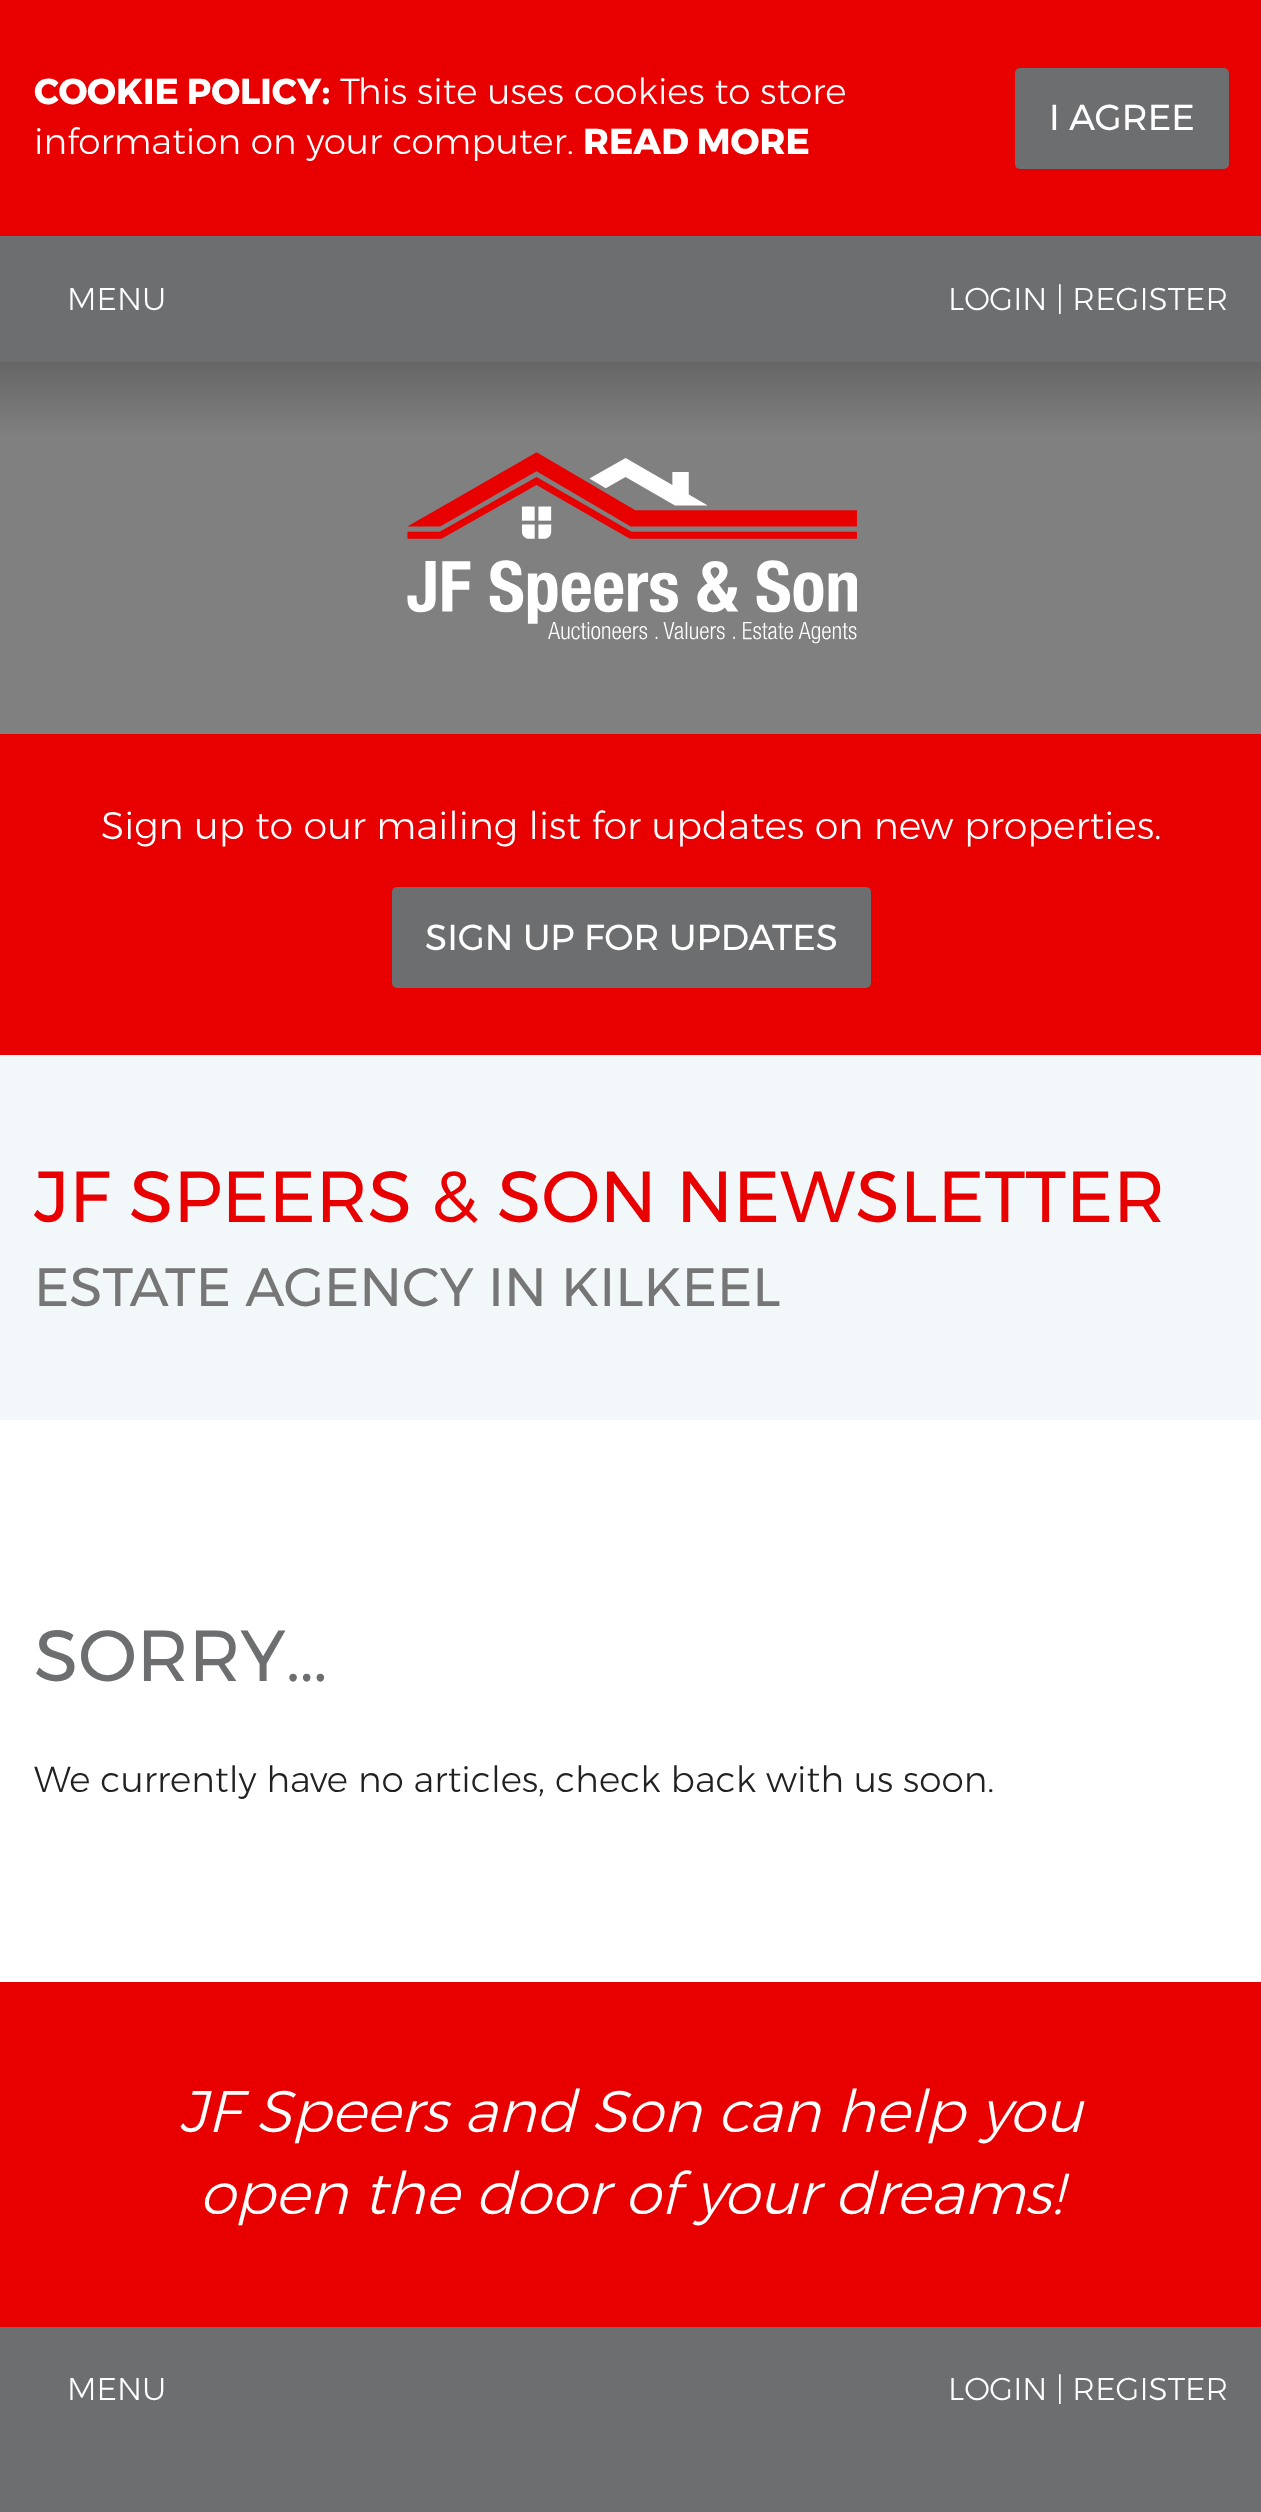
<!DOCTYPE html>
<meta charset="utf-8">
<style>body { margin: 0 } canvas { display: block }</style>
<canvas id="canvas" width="1261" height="2512"></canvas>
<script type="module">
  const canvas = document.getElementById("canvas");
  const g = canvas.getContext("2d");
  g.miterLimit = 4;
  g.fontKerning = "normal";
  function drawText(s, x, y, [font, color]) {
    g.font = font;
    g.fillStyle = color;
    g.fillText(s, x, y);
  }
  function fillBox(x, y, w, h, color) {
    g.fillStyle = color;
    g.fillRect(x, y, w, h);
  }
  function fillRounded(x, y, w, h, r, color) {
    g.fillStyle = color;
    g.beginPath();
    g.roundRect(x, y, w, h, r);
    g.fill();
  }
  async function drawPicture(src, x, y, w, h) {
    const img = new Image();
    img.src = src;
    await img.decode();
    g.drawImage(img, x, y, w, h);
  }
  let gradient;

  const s1 = ["bold 36px Montserrat", "#FFFFFF"];
  const s2 = ["300 36px Montserrat", "#FFFFFF"];
  const s3 = ["36px Montserrat", "#FFFFFF"];
  const s4 = ["300 31.5px Montserrat", "#FFFFFF"];
  const s5 = ["300 38.25px Montserrat", "#FFFFFF"];
  const s6 = ["72px Montserrat", "#E80001"];
  const s7 = ["54px Montserrat", "#767676"];
  const s8 = ["72px Montserrat", "#6D6E70"];
  const s9 = ["300 36px Montserrat", "#212121"];
  const s10 = ["italic 300 58.5px Montserrat", "#FFFFFF"];

  fillBox(0, 0, 1261, 2512, "#FFFFFF");
  fillBox(0, 0, 1261, 236, "#E80001");
  drawText("COOKIE POLICY:", 34, 104, s1);
  drawText("This site uses cookies to store", 340, 104, s2);
  drawText("information on your computer.", 34, 154, s2);
  drawText("READ MORE", 583, 154, s1);
  fillRounded(1015, 68, 214, 101, 5, "#6D6E70");
  drawText("I AGREE", 1049, 130, s3);
  fillBox(0, 236, 1261, 126, "#6D6E70");
  drawText("MENU", 67, 310, s4);
  drawText("LOGIN | REGISTER", 948, 310, s4);
  gradient = g.createLinearGradient(631, 362, 631, 734);
  gradient.addColorStop(0, "#666666");
  gradient.addColorStop(0.2, "#808080");
  gradient.addColorStop(1, "#808080");
  g.fillStyle = gradient;
  g.fillRect(0, 362, 1261, 372);
  await drawPicture("pic1.png", 407, 452, 450, 192);
  fillBox(0, 734, 1261, 321, "#E80001");
  drawText("Sign up to our mailing list for updates on new properties.", 101, 839, s5);
  fillRounded(392, 887, 479, 101, 5, "#6D6E70");
  drawText("SIGN UP FOR UPDATES", 425, 950, s3);
  fillBox(0, 1055, 1261, 365, "#F2F7FA");
  drawText("JF SPEERS & SON NEWSLETTER", 34, 1222, s6);
  drawText("ESTATE AGENCY IN KILKEEL", 34, 1306, s7);
  drawText("SORRY…", 34, 1681, s8);
  drawText("We currently have no articles, check back with us soon.", 34, 1792, s9);
  fillBox(0, 1982, 1261, 345, "#E80001");
  drawText("JF Speers and Son can help you", 179, 2132, s10);
  drawText("open the door of your dreams!", 199, 2214, s10);
  fillBox(0, 2327, 1261, 185, "#6D6E70");
  drawText("MENU", 67, 2400, s4);
  drawText("LOGIN | REGISTER", 948, 2400, s4);
</script>
